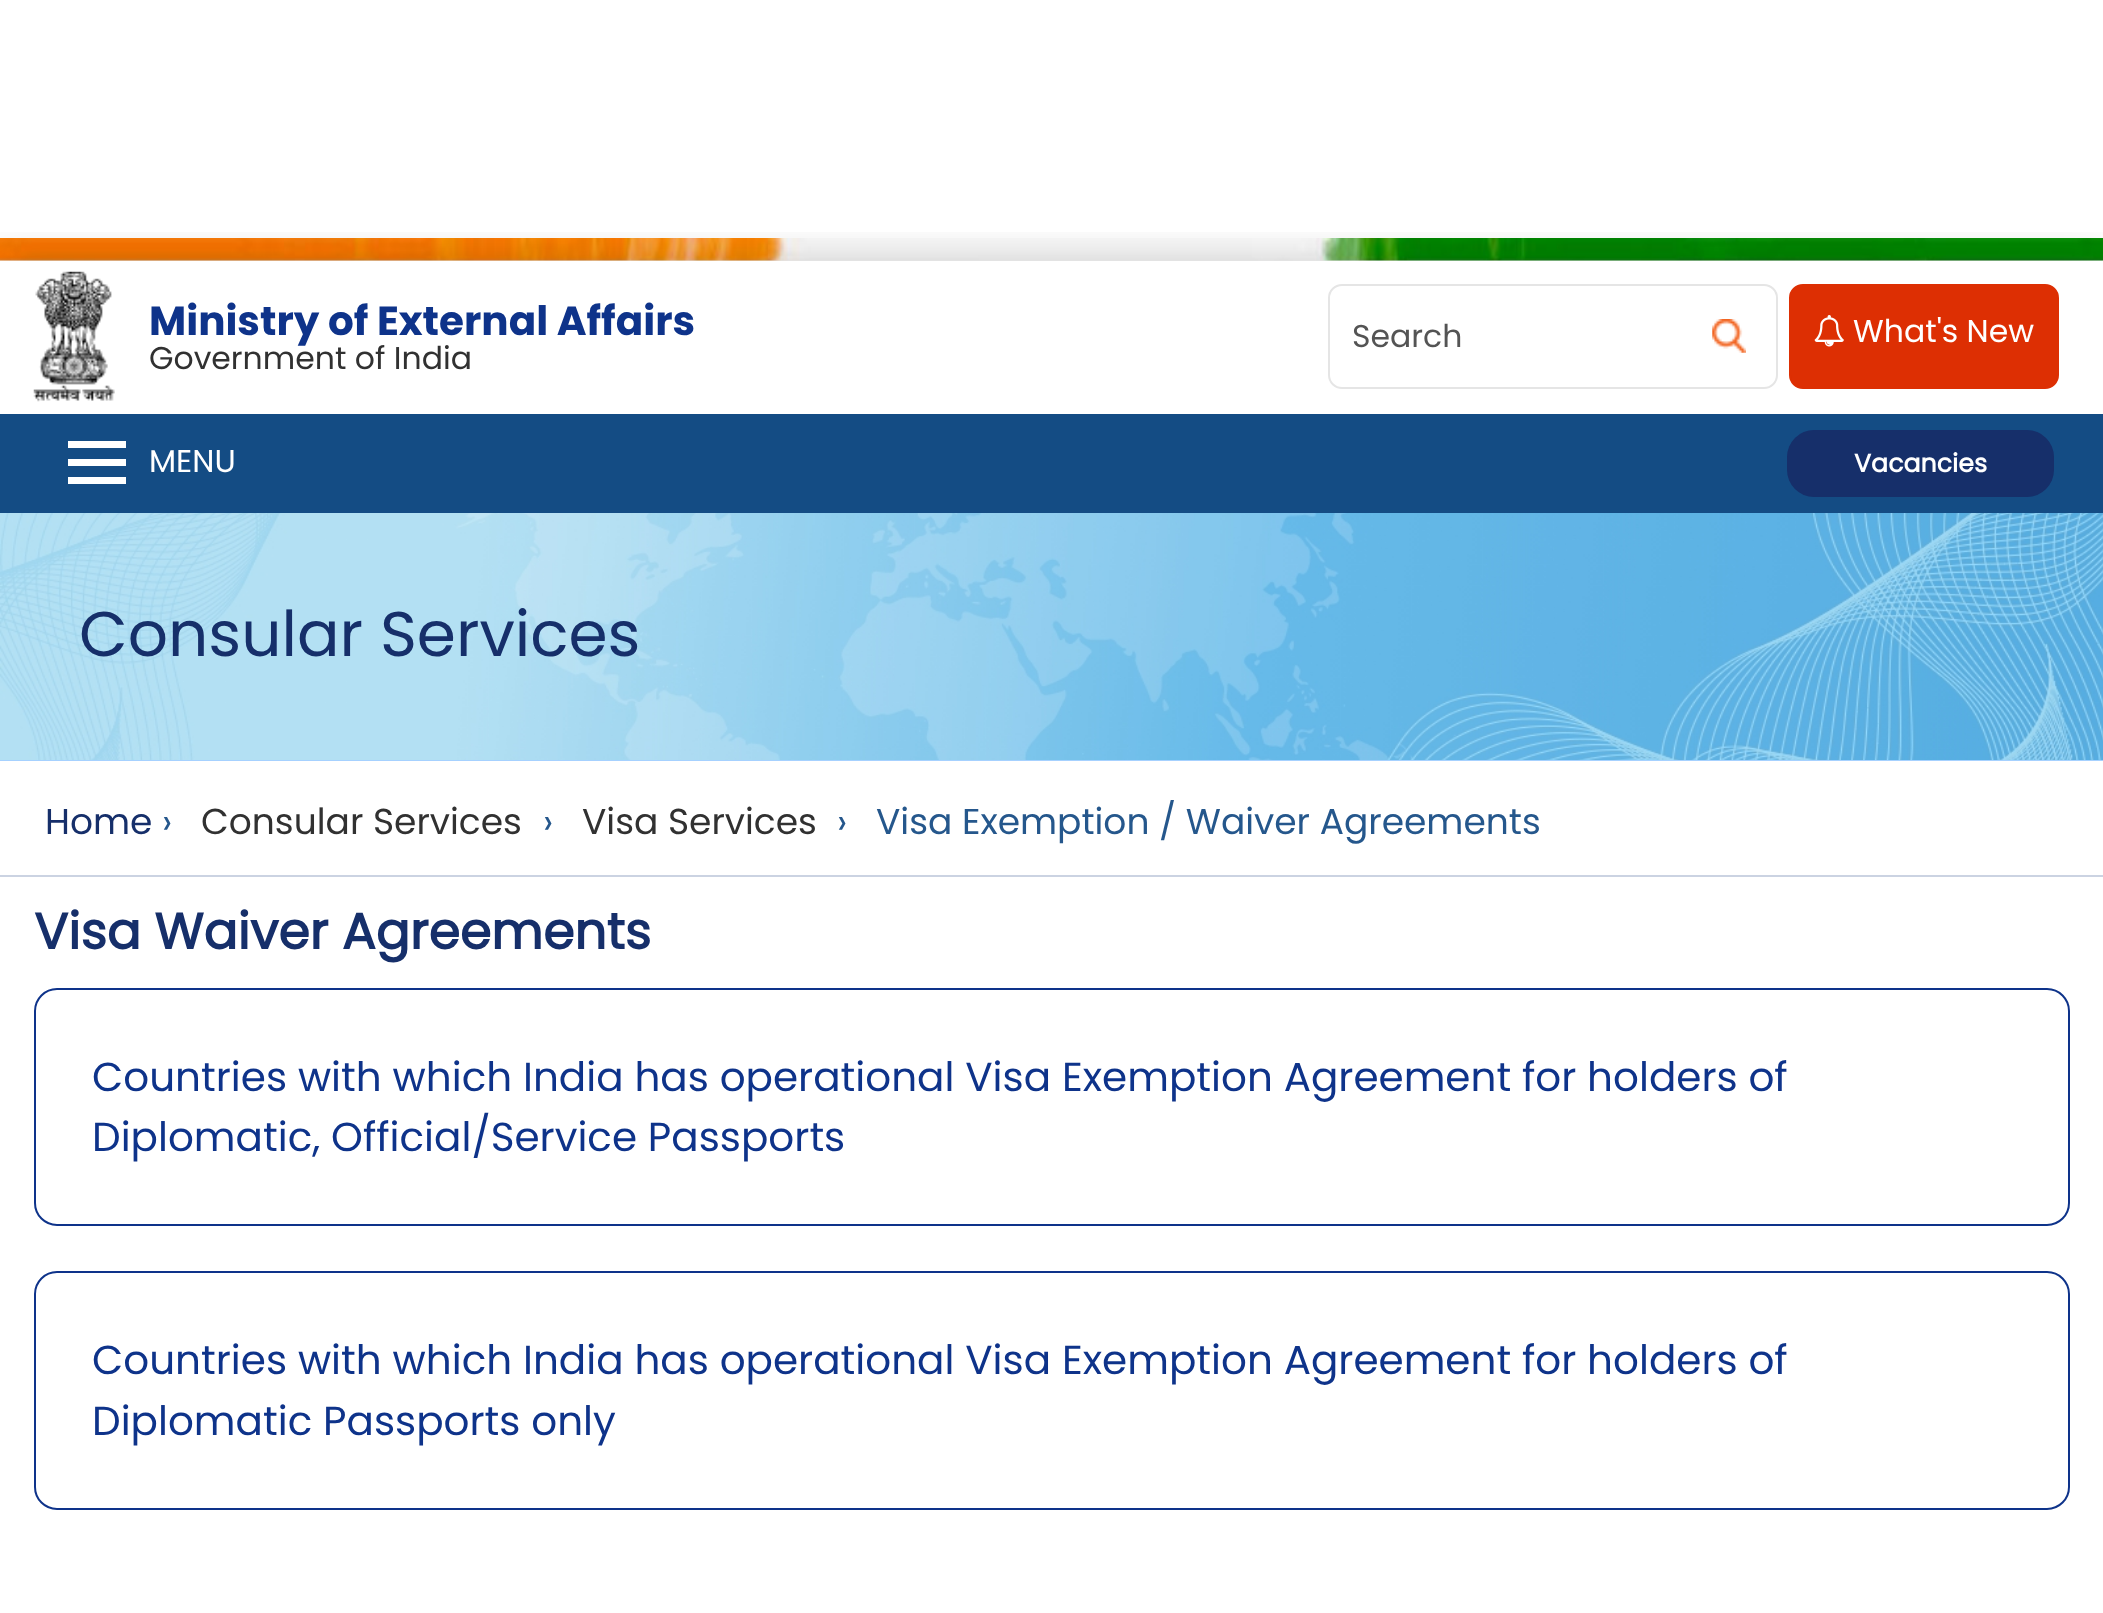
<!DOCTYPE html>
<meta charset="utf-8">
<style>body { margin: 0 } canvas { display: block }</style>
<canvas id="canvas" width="2103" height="1613"></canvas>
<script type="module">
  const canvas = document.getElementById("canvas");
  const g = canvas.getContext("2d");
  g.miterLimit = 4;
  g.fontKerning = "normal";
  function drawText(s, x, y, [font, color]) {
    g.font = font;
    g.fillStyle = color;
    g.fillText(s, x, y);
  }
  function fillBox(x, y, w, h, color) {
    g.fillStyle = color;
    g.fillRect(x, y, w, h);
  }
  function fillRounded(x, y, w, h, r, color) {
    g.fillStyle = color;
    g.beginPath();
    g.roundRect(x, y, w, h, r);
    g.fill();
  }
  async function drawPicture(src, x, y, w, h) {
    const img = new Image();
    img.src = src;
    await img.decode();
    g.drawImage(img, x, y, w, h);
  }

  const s1 = ["bold 40.5px 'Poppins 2'", "#0E338A"];
  const s2 = ["31.5px Poppins", "#313131"];
  const s3 = ["31.5px Poppins", "#545454"];
  const s4 = ["31.5px Poppins", "#FFFFFF"];
  const s5 = ["bold 25.25px Poppins", "#FFFFFF"];
  const s6 = ["63px Poppins", "#162F6A"];
  const s7 = ["36px Poppins", "#162F6A"];
  const s8 = ["36px Poppins", "#25578C"];
  const s9 = ["36px Poppins", "#313131"];
  const s10 = ["bold 50.4px Poppins", "#162F6A"];
  const s11 = ["40.5px Poppins", "#0E338A"];

  fillBox(0, 0, 2103, 1613, "#FFFFFF");
  await drawPicture("pic1.png", 0, 238, 2103, 23);
  g.save();
  g.beginPath();
  g.rect(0, 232, 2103, 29);
  g.clip();
  g.fillStyle = "rgba(0, 0, 0, 0.2)";
  g.filter = "blur(22.5px)";
  g.beginPath();
  g.rect(0, 261, 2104, 252);
  g.fill();
  g.filter = "none";
  g.restore();
  await drawPicture("pic2.png", 33, 271, 82, 131);
  drawText("Ministry of External Affairs", 149, 335, s1);
  drawText("Government of India", 149, 369, s2);
  g.beginPath();
  g.roundRect(1329, 285, 448, 103, 13);
  g.strokeStyle = "#E5E5E5";
  g.lineWidth = 2;
  g.stroke();
  drawText("Search", 1352, 347, s3);
  await drawPicture("pic3.png", 1712, 319, 34, 34);
  g.fillStyle = "#DD2F03";
  g.beginPath();
  g.roundRect(1790, 285, 268, 103, 13);
  g.fill();
  g.strokeStyle = "#DD2F03";
  g.stroke();
  await drawPicture("pic4.png", 1814, 315, 30, 32);
  drawText("What's New", 1853, 342, s4);
  fillBox(0, 414, 2103, 99, "#144C84");
  fillBox(68, 459, 58, 7, "#FFFFFF");
  fillBox(68, 441, 58, 7, "#FFFFFF");
  fillBox(68, 477, 58, 7, "#FFFFFF");
  drawText("MENU", 149, 472, s4);
  fillRounded(1787, 430, 267, 67, 27, "#162F6A");
  drawText("Vacancies", 1854, 472, s5);
  fillBox(0, 760, 2103, 1, "#A6D1FF");
  await drawPicture("pic5.png", 0, 513, 2103, 247);
  drawText("Consular Services", 79, 656, s6);
  fillBox(0, 875, 2103, 2, "#CBD3E2");
  drawText("Home", 45, 834, s7);
  drawText("›", 162, 834, s8);
  drawText("Consular Services", 201, 834, s9);
  drawText("›", 543, 834, s8);
  drawText("Visa Services", 582, 834, s9);
  drawText("›", 837, 834, s8);
  drawText("Visa Exemption / Waiver Agreements", 876, 834, s8);
  drawText("Visa Waiver Agreements", 34, 949, s10);
  g.beginPath();
  g.roundRect(35, 989, 2034, 236, 22);
  g.strokeStyle = "#0E338A";
  g.stroke();
  drawText("Countries with which India has operational Visa Exemption Agreement for holders of", 92, 1091, s11);
  drawText("Diplomatic, Official/Service Passports", 92, 1151, s11);
  g.beginPath();
  g.roundRect(35, 1272, 2034, 237, 22);
  g.stroke();
  drawText("Countries with which India has operational Visa Exemption Agreement for holders of", 92, 1374, s11);
  drawText("Diplomatic Passports only", 92, 1435, s11);
</script>
